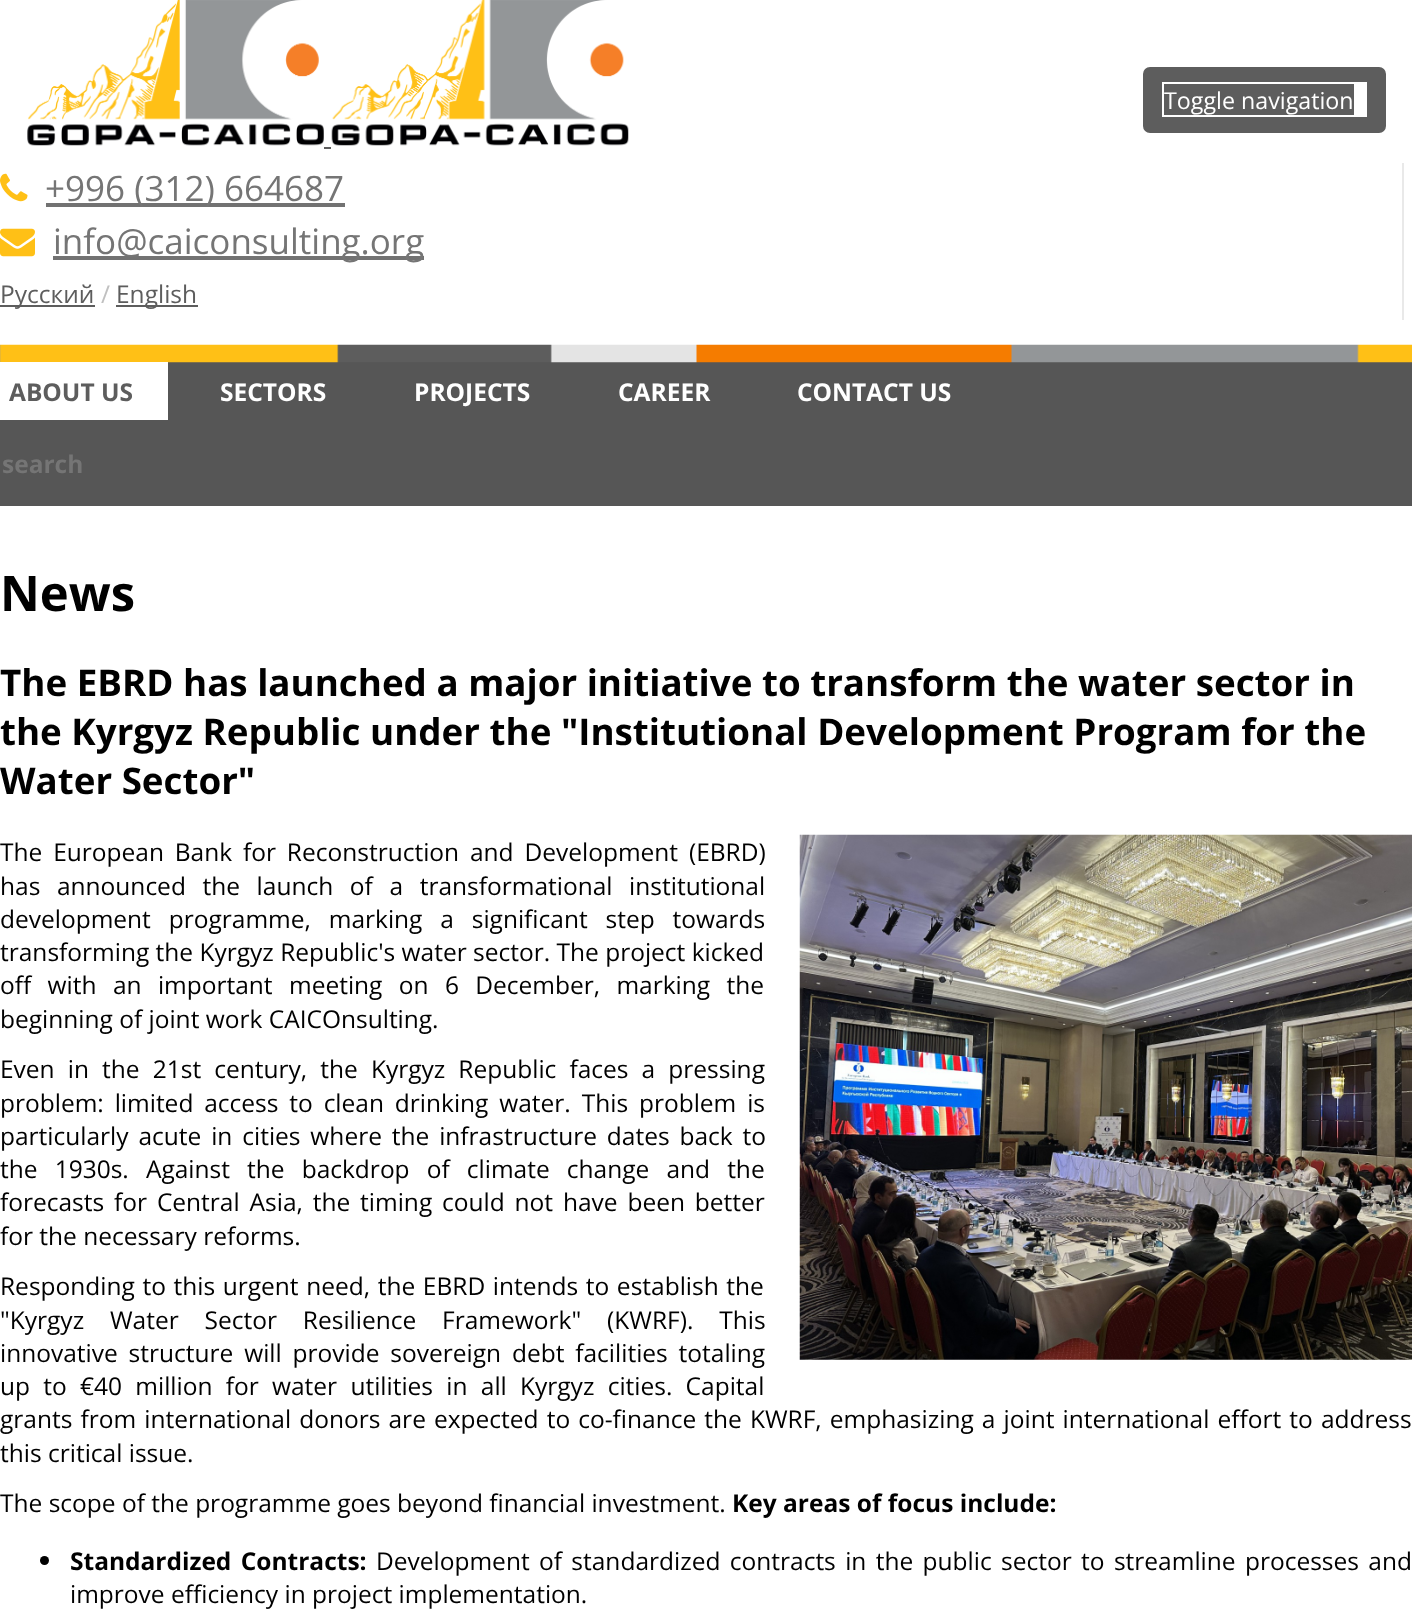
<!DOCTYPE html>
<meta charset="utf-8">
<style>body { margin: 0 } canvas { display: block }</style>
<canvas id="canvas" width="1412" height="1620"></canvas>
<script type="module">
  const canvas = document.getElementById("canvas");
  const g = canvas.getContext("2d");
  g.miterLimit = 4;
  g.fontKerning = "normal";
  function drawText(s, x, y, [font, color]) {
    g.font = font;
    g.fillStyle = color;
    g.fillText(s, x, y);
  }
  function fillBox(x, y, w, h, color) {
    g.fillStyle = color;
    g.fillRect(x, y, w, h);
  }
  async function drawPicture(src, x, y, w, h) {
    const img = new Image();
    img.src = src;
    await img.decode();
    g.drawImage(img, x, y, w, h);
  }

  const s1 = ["23.25px Open Sans", "#FFFFFF"];
  const s2 = ["35px Open Sans", "#757575"];
  const s3 = ["24.5px Open Sans", "#5D5D5D"];
  const s4 = ["24.5px Open Sans", "#C0C0C0"];
  const s5 = ["bold 24.5px Open Sans", "#5D5D5D"];
  const s6 = ["bold 24.5px Open Sans", "#FFFFFF"];
  const s7 = ["bold 24.5px Open Sans", "#757575"];
  const s8 = ["bold 49px Open Sans", "#000000"];
  const s9 = ["bold 36.75px Open Sans", "#000000"];
  const s10 = ["24.5px Open Sans", "#000000"];
  const s11 = ["bold 24.5px Open Sans", "#000000"];

  fillBox(0, 0, 1412, 1620, "#FFFFFF");
  await drawPicture("pic1.png", 27, 0, 297, 146);
  await drawPicture("pic2.png", 331, 0, 298, 146);
  g.fillStyle = "#5D5D5D";
  g.beginPath();
  g.roundRect(1144, 68, 241, 64, 6);
  g.fill();
  g.strokeStyle = "#5D5D5D";
  g.lineWidth = 2;
  g.stroke();
  g.strokeStyle = "#FFFFFF";
  g.strokeRect(1163, 83, 192, 33);
  drawText("Toggle navigation", 1164, 109, s1);
  fillBox(1356, 82, 11, 35, "#FFFFFF");
  fillBox(324, 147, 7, 2, "#5D5D5D");
  fillBox(1402, 163, 2, 157, "#E9E9E9");
  await drawPicture("pic3.png", 0, 173, 28, 29);
  fillBox(46, 203, 299, 4, "#727272");
  drawText("+996 (312) 664687", 45, 201, s2);
  await drawPicture("pic4.png", 0, 228, 35, 29);
  fillBox(53, 256, 371, 4, "#727272");
  drawText("info@caiconsulting.org", 53, 254, s2);
  fillBox(0, 305, 95, 2, "#5D5D5D");
  drawText("Русский", 0, 303, s3);
  drawText("/", 101, 303, s4);
  fillBox(116, 305, 82, 2, "#5D5D5D");
  drawText("English", 116, 303, s3);
  fillBox(0, 362, 1412, 144, "#565656");
  await drawPicture("pic5.png", 0, 344, 1412, 19);
  fillBox(0, 362, 168, 58, "#FFFFFF");
  drawText("ABOUT US", 9, 401, s5);
  drawText("SECTORS", 220, 401, s6);
  drawText("PROJECTS", 414, 401, s6);
  drawText("CAREER", 618, 401, s6);
  drawText("CONTACT US", 797, 401, s6);
  drawText("search", 2, 473, s7);
  drawText("News", 0, 611, s8);
  drawText("The EBRD has launched a major initiative to transform the water sector in", 0, 696, s9);
  drawText("the Kyrgyz Republic under the \"Institutional Development Program for the", 0, 745, s9);
  drawText("Water Sector\"", 0, 794, s9);
  g.wordSpacing = "4.5px";
  drawText("The European Bank for Reconstruction and Development (EBRD)", 0, 861, s10);
  g.wordSpacing = "10.25px";
  drawText("has announced the launch of a transformational institutional", 0, 895, s10);
  g.wordSpacing = "11.5px";
  drawText("development programme, marking a significant step towards", 0, 928, s10);
  g.wordSpacing = "0px";
  drawText("transforming the Kyrgyz Republic's water sector. The project kicked", 0, 961, s10);
  g.wordSpacing = "10px";
  drawText("off with an important meeting on 6 December, marking the", 0, 994, s10);
  g.wordSpacing = "0px";
  drawText("beginning of joint work CAICOnsulting.", 0, 1028, s10);
  await drawPicture("pic6.png", 799, 834, 613, 526);
  g.wordSpacing = "6.75px";
  drawText("Even in the 21st century, the Kyrgyz Republic faces a pressing", 0, 1078, s10);
  g.wordSpacing = "4.5px";
  drawText("problem: limited access to clean drinking water. This problem is", 0, 1112, s10);
  g.wordSpacing = "3.5px";
  drawText("particularly acute in cities where the infrastructure dates back to", 0, 1145, s10);
  g.wordSpacing = "10.75px";
  drawText("the 1930s. Against the backdrop of climate change and the", 0, 1178, s10);
  g.wordSpacing = "3.5px";
  drawText("forecasts for Central Asia, the timing could not have been better", 0, 1211, s10);
  g.wordSpacing = "0px";
  drawText("for the necessary reforms.", 0, 1245, s10);
  g.wordSpacing = "1.25px";
  drawText("Responding to this urgent need, the EBRD intends to establish the", 0, 1295, s10);
  g.wordSpacing = "19.5px";
  drawText("\"Kyrgyz Water Sector Resilience Framework\" (KWRF). This", 0, 1329, s10);
  g.wordSpacing = "4.5px";
  drawText("innovative structure will provide sovereign debt facilities totaling", 0, 1362, s10);
  g.wordSpacing = "6.9px";
  drawText("up to €40 million for water utilities in all Kyrgyz cities. Capital", 0, 1395, s10);
  g.wordSpacing = "1.75px";
  drawText("grants from international donors are expected to co-finance the KWRF, emphasizing a joint international effort to address", 0, 1428, s10);
  g.wordSpacing = "0px";
  drawText("this critical issue.", 0, 1462, s10);
  drawText("The scope of the programme goes beyond financial investment.", 0, 1512, s10);
  drawText("Key areas of focus include:", 732, 1512, s11);
  g.beginPath();
  g.arc(44.5, 1560.5, 4.5, 0, Math.PI * 2);
  g.fill();
  g.wordSpacing = "3px";
  drawText("Standardized Contracts:", 70, 1570, s11);
  drawText("Development of standardized contracts in the public sector to streamline processes and", 376, 1570, s10);
  g.wordSpacing = "0px";
  drawText("improve efficiency in project implementation.", 70, 1603, s10);
</script>
